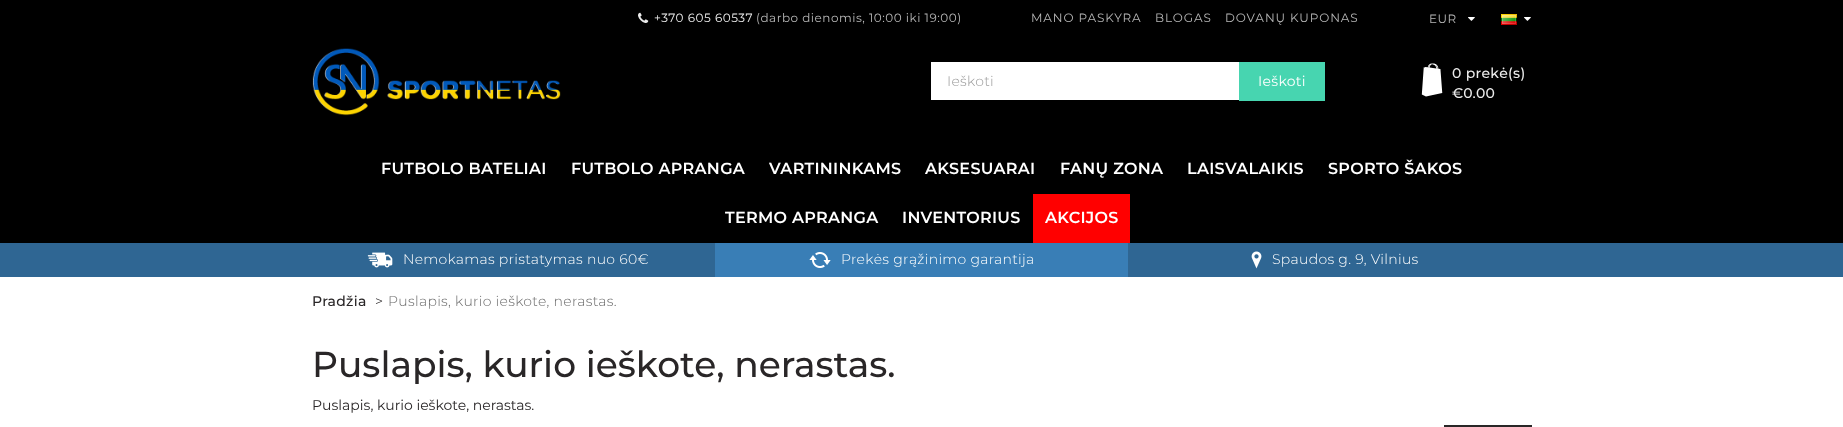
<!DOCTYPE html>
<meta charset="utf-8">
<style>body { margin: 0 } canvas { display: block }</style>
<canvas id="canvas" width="1843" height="427"></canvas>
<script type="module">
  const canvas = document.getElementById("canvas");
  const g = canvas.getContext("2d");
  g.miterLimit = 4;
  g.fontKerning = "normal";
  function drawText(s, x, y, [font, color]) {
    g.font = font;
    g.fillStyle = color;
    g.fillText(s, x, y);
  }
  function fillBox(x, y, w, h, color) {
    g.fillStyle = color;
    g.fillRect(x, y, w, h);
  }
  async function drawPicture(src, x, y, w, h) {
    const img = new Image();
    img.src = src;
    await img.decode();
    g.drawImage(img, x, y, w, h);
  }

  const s1 = ["12px Montserrat", "#ECECEC"];
  const s2 = ["12px Montserrat", "#B7B7B7"];
  const s3 = ["300 14px Montserrat", "#999999"];
  const s4 = ["14px Montserrat", "#FFFFFF"];
  const s5 = ["500 14px Montserrat", "#ECECEC"];
  const s6 = ["600 16px Montserrat", "#FFFFFF"];
  const s7 = ["300 14px Montserrat", "#FFFFFF"];
  const s8 = ["500 14px Montserrat", "#292627"];
  const s9 = ["14px Montserrat", "#292627"];
  const s10 = ["300 14px Montserrat", "#6B6B6B"];
  const s11 = ["500 36px Montserrat", "#292627"];

  fillBox(0, 0, 1843, 427, "#FFFFFF");
  fillBox(0, 0, 1843, 243, "#000000");
  await drawPicture("pic1.png", 638, 12, 11, 11);
  g.letterSpacing = "0.5px";
  drawText("+370 605 60537", 654, 22, s1);
  drawText("(darbo dienomis, 10:00 iki 19:00)", 756, 22, s2);
  g.letterSpacing = "0.9px";
  drawText("MANO PASKYRA", 1031, 22, s2);
  drawText("BLOGAS", 1155, 22, s2);
  drawText("DOVANŲ KUPONAS", 1225, 22, s2);
  g.letterSpacing = "0.5px";
  drawText("EUR", 1429, 23, s2);
  await drawPicture("pic2.png", 1468, 17, 7, 4);
  await drawPicture("pic3.png", 1501, 14, 16, 11);
  await drawPicture("pic2.png", 1524, 17, 7, 4);
  await drawPicture("pic4.png", 312, 48, 249, 68);
  fillBox(931, 62, 308, 38, "#FFFFFF");
  g.letterSpacing = "0.3px";
  drawText("Ieškoti", 947, 86, s3);
  fillBox(1239, 62, 86, 39, "#47D5B0");
  drawText("Ieškoti", 1258, 86, s4);
  await drawPicture("pic5.png", 1421, 63, 22, 34);
  drawText("0 prekė(s)", 1452, 78, s5);
  drawText("€0.00", 1452, 98, s5);
  drawText("FUTBOLO BATELIAI", 381, 174, s6);
  drawText("FUTBOLO APRANGA", 571, 174, s6);
  drawText("VARTININKAMS", 769, 174, s6);
  drawText("AKSESUARAI", 925, 174, s6);
  drawText("FANŲ ZONA", 1060, 174, s6);
  drawText("LAISVALAIKIS", 1187, 174, s6);
  drawText("SPORTO ŠAKOS", 1328, 174, s6);
  drawText("TERMO APRANGA", 725, 223, s6);
  drawText("INVENTORIUS", 902, 223, s6);
  fillBox(1033, 194, 97, 49, "#FF0000");
  drawText("AKCIJOS", 1045, 223, s6);
  fillBox(0, 243, 1843, 34, "#2F6693");
  await drawPicture("pic6.png", 367, 252, 26, 16);
  drawText("Nemokamas pristatymas nuo 60€", 403, 264, s7);
  fillBox(715, 243, 413, 34, "#397EB6");
  await drawPicture("pic7.png", 809, 252, 22, 16);
  drawText("Prekės grąžinimo garantija", 841, 264, s7);
  await drawPicture("pic8.png", 1251, 251, 11, 18);
  drawText("Spaudos g. 9, Vilnius", 1272, 264, s7);
  drawText("Pradžia", 312, 306, s8);
  g.letterSpacing = "0px";
  drawText(">", 375, 306, s9);
  g.letterSpacing = "0.3px";
  drawText("Puslapis, kurio ieškote, nerastas.", 388, 306, s10);
  g.letterSpacing = "0px";
  drawText("Puslapis, kurio ieškote, nerastas.", 312, 377, s11);
  drawText("Puslapis, kurio ieškote, nerastas.", 312, 410, s9);
  fillBox(1444, 425, 88, 2, "#292727");
</script>
